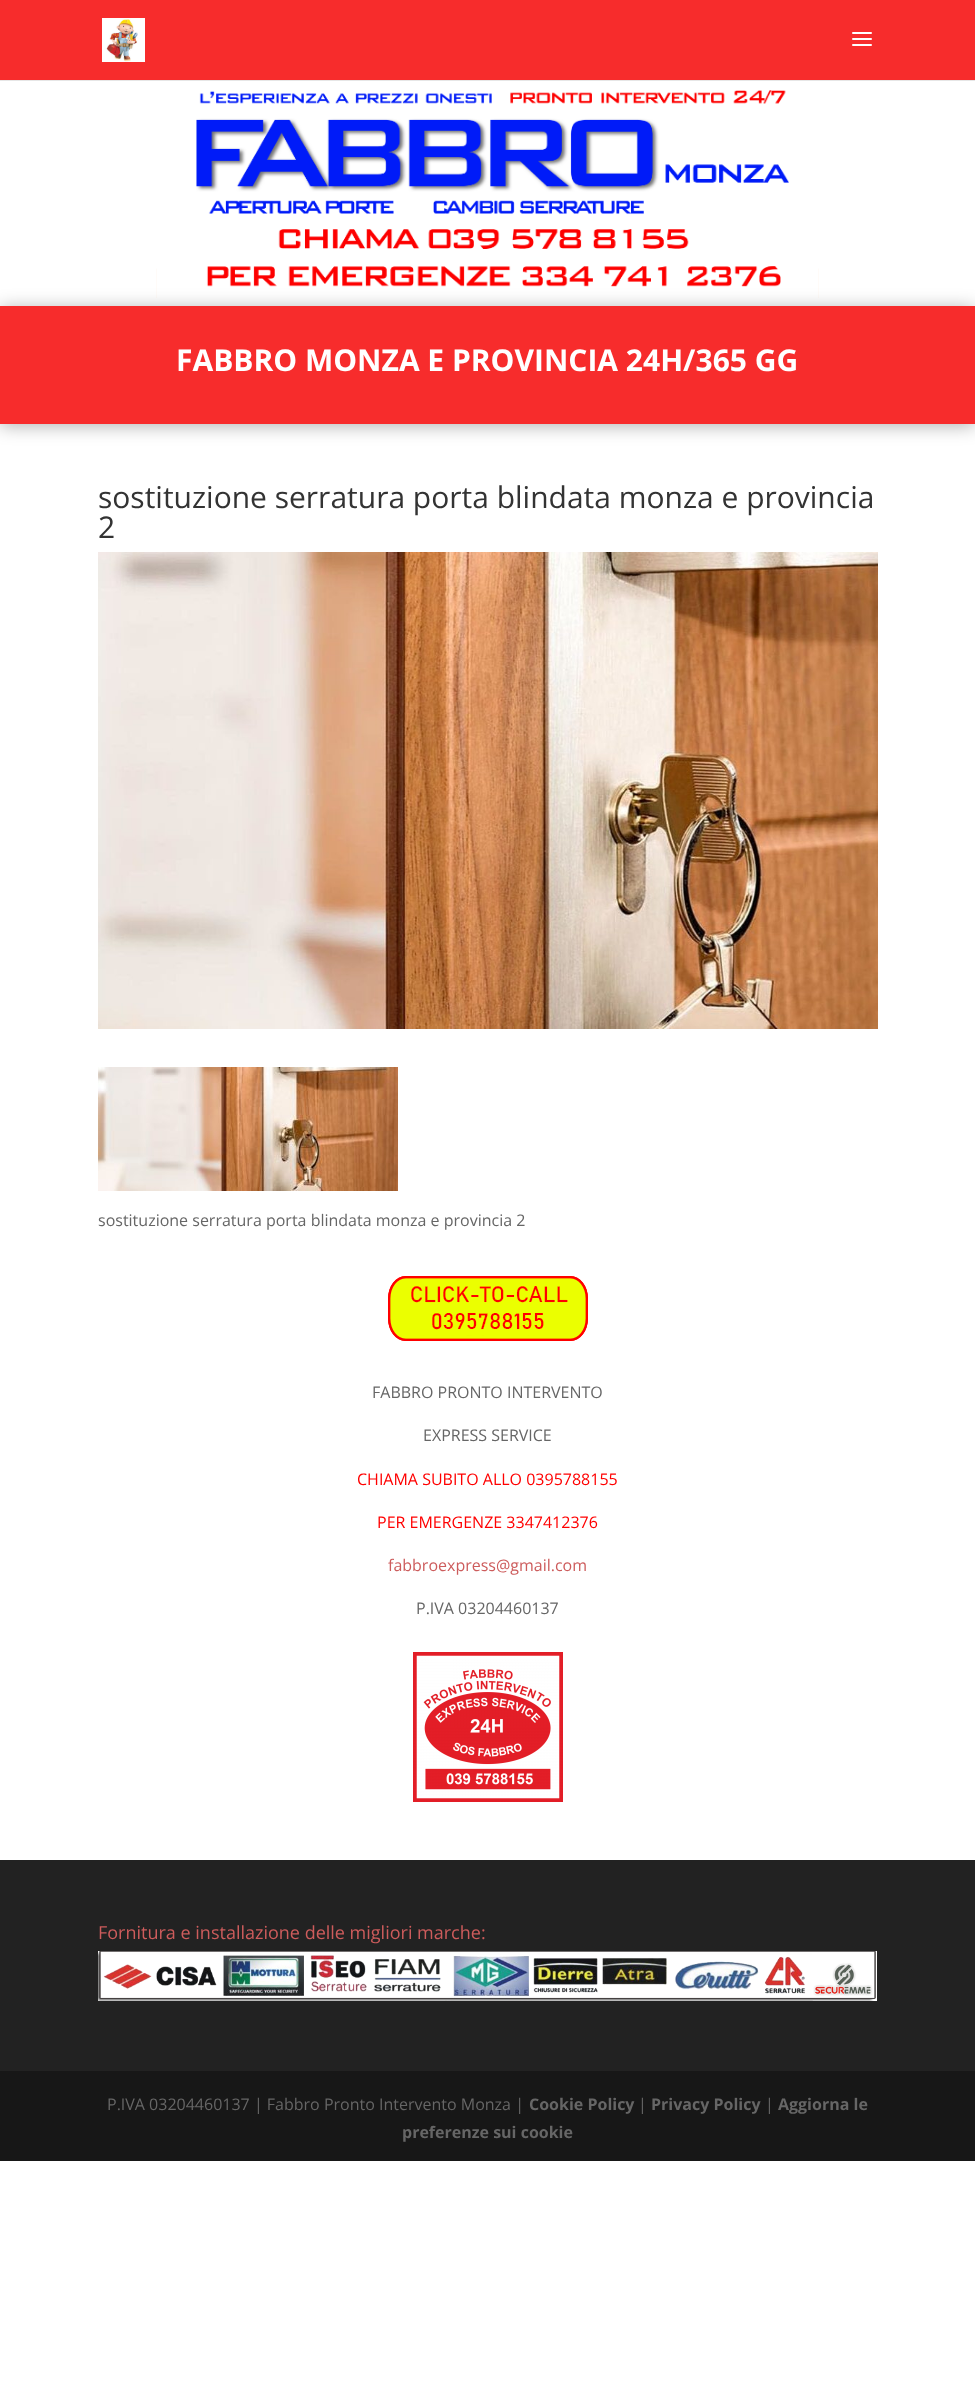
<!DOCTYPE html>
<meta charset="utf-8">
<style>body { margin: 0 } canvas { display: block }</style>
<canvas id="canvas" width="975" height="2396"></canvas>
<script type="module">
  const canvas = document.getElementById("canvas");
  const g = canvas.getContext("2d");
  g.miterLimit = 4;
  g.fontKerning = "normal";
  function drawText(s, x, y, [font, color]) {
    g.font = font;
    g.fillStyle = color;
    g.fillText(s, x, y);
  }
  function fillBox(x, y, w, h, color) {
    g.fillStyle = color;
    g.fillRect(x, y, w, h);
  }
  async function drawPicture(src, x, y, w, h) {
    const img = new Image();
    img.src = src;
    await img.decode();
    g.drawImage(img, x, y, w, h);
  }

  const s1 = ["bold 30px Open Sans", "#FFFFFF"];
  const s2 = ["30px Open Sans", "#333333"];
  const s3 = ["16px Open Sans", "#666666"];
  const s4 = ["16px Open Sans", "#FF0000"];
  const s5 = ["16px Open Sans", "#CD5C5C"];
  const s6 = ["18px Open Sans", "#CD5C5C"];
  const s7 = ["bold 16px Open Sans", "#666666"];

  fillBox(0, 0, 975, 2396, "#FFFFFF");
  fillBox(0, 80, 975, 1, "#E6E6E6");
  fillBox(0, 0, 975, 80, "#F72C2C");
  await drawPicture("pic1.png", 102, 18, 43, 44);
  await drawPicture("pic2.png", 852, 32, 20, 14);
  await drawPicture("pic3.png", 156, 90, 663, 208);
  g.fillStyle = "rgba(0, 0, 0, 0.3)";
  g.filter = "blur(9px)";
  g.beginPath();
  g.rect(0, 308, 975, 118);
  g.fill();
  g.filter = "none";
  fillBox(0, 306, 975, 118, "#F72C2C");
  drawText("FABBRO MONZA E PROVINCIA 24H/365 GG", 176, 371, s1);
  drawText("sostituzione serratura porta blindata monza e provincia", 98, 508, s2);
  drawText("2", 98, 538, s2);
  await drawPicture("pic4.png", 98, 552, 780, 477);
  await drawPicture("pic5.png", 98, 1067, 300, 124);
  drawText("sostituzione serratura porta blindata monza e provincia 2", 98, 1226, s3);
  await drawPicture("pic6.png", 388, 1276, 200, 65);
  drawText("FABBRO PRONTO INTERVENTO", 372, 1398, s3);
  drawText("EXPRESS SERVICE", 423, 1441, s3);
  drawText("CHIAMA SUBITO ALLO 0395788155", 357, 1485, s4);
  drawText("PER EMERGENZE 3347412376", 377, 1528, s4);
  drawText("fabbroexpress@gmail.com", 388, 1571, s5);
  drawText("P.IVA 03204460137", 416, 1614, s3);
  await drawPicture("pic7.png", 413, 1652, 150, 150);
  fillBox(0, 1860, 975, 211, "#222222");
  drawText("Fornitura e installazione delle migliori marche:", 98, 1939, s6);
  await drawPicture("pic8.png", 98, 1951, 779, 50);
  fillBox(0, 2071, 975, 90, "#171717");
  drawText("P.IVA 03204460137 | Fabbro Pronto Intervento Monza |", 107, 2110, s3);
  drawText("Cookie Policy", 529, 2110, s7);
  drawText("|", 638, 2110, s3);
  drawText("Privacy Policy", 651, 2110, s7);
  drawText("|", 765, 2110, s3);
  drawText("Aggiorna le", 778, 2110, s7);
  drawText("preferenze sui cookie", 402, 2138, s7);
</script>
